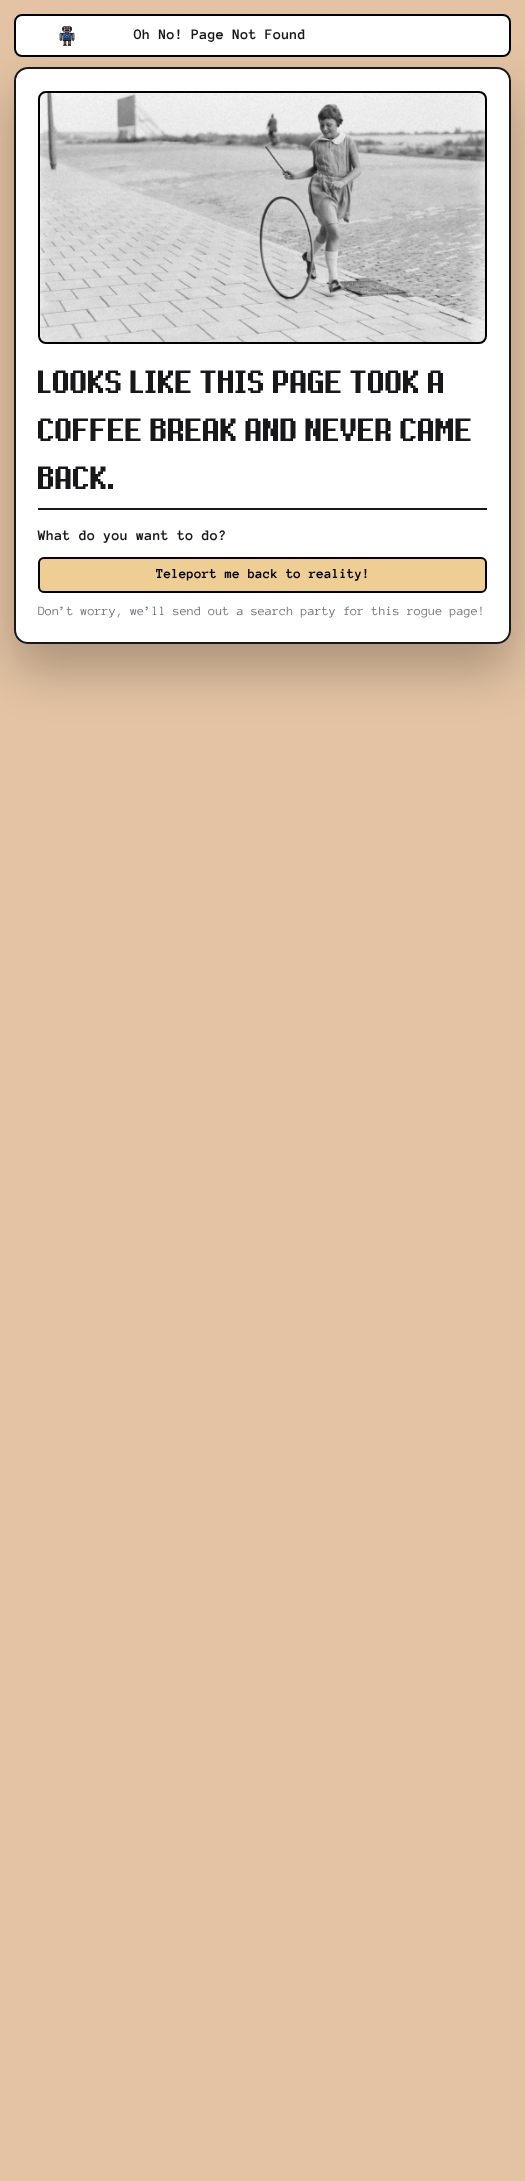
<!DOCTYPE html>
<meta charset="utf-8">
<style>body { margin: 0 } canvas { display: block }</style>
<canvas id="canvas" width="525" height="2181"></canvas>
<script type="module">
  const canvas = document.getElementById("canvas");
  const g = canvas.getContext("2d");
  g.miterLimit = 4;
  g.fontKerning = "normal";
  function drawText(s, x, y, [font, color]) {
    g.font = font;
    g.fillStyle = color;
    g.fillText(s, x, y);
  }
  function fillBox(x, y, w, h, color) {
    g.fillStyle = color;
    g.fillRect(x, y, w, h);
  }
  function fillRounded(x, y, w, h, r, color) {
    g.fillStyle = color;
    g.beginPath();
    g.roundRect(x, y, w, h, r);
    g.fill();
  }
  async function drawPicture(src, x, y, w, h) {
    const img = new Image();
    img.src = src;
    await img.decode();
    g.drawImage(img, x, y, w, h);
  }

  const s1 = ["bold 15px Anonymous Pro", "#18181B"];
  const s2 = ["40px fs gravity", "#18181B"];
  const s3 = ["bold 14px Anonymous Pro", "#000000"];
  const s4 = ["13px Anonymous Pro", "#71717A"];

  fillBox(0, 0, 525, 2181, "#E3C3A3");
  g.fillStyle = "rgba(0, 0, 0, 0.25)";
  g.filter = "blur(25px)";
  g.beginPath();
  g.roundRect(14, 92, 497, 577, 14);
  g.fill();
  g.filter = "none";
  fillRounded(14, 14, 497, 43, 8, "#FFFFFF");
  await drawPicture("pic1.png", 59, 26, 16, 20);
  g.beginPath();
  g.roundRect(15, 15, 495, 41, 7);
  g.strokeStyle = "#000000";
  g.lineWidth = 2;
  g.stroke();
  drawText("Oh No! Page Not Found", 134, 39, s1);
  fillRounded(14, 67, 497, 577, 14, "#FFFFFF");
  await drawPicture("pic2.png", 38, 91, 449, 253);
  g.beginPath();
  g.roundRect(39, 92, 447, 251, 7);
  g.stroke();
  fillBox(38, 508, 449, 2, "#18181B");
  fillRounded(38, 557, 449, 36, 6, "#EECE93");
  g.beginPath();
  g.roundRect(39, 558, 447, 34, 5);
  g.stroke();
  g.beginPath();
  g.roundRect(15, 68, 495, 575, 13);
  g.strokeStyle = "#18181B";
  g.stroke();
  drawText("LOOKS LIKE THIS PAGE TOOK A", 38, 393, s2);
  drawText("COFFEE BREAK AND NEVER CAME", 38, 441, s2);
  drawText("BACK.", 38, 489, s2);
  drawText("What do you want to do?", 38, 540, s1);
  drawText("Teleport me back to reality!", 156, 578, s3);
  drawText("Don’t worry, we’ll send out a search party for this rogue page!", 38, 615, s4);
</script>
